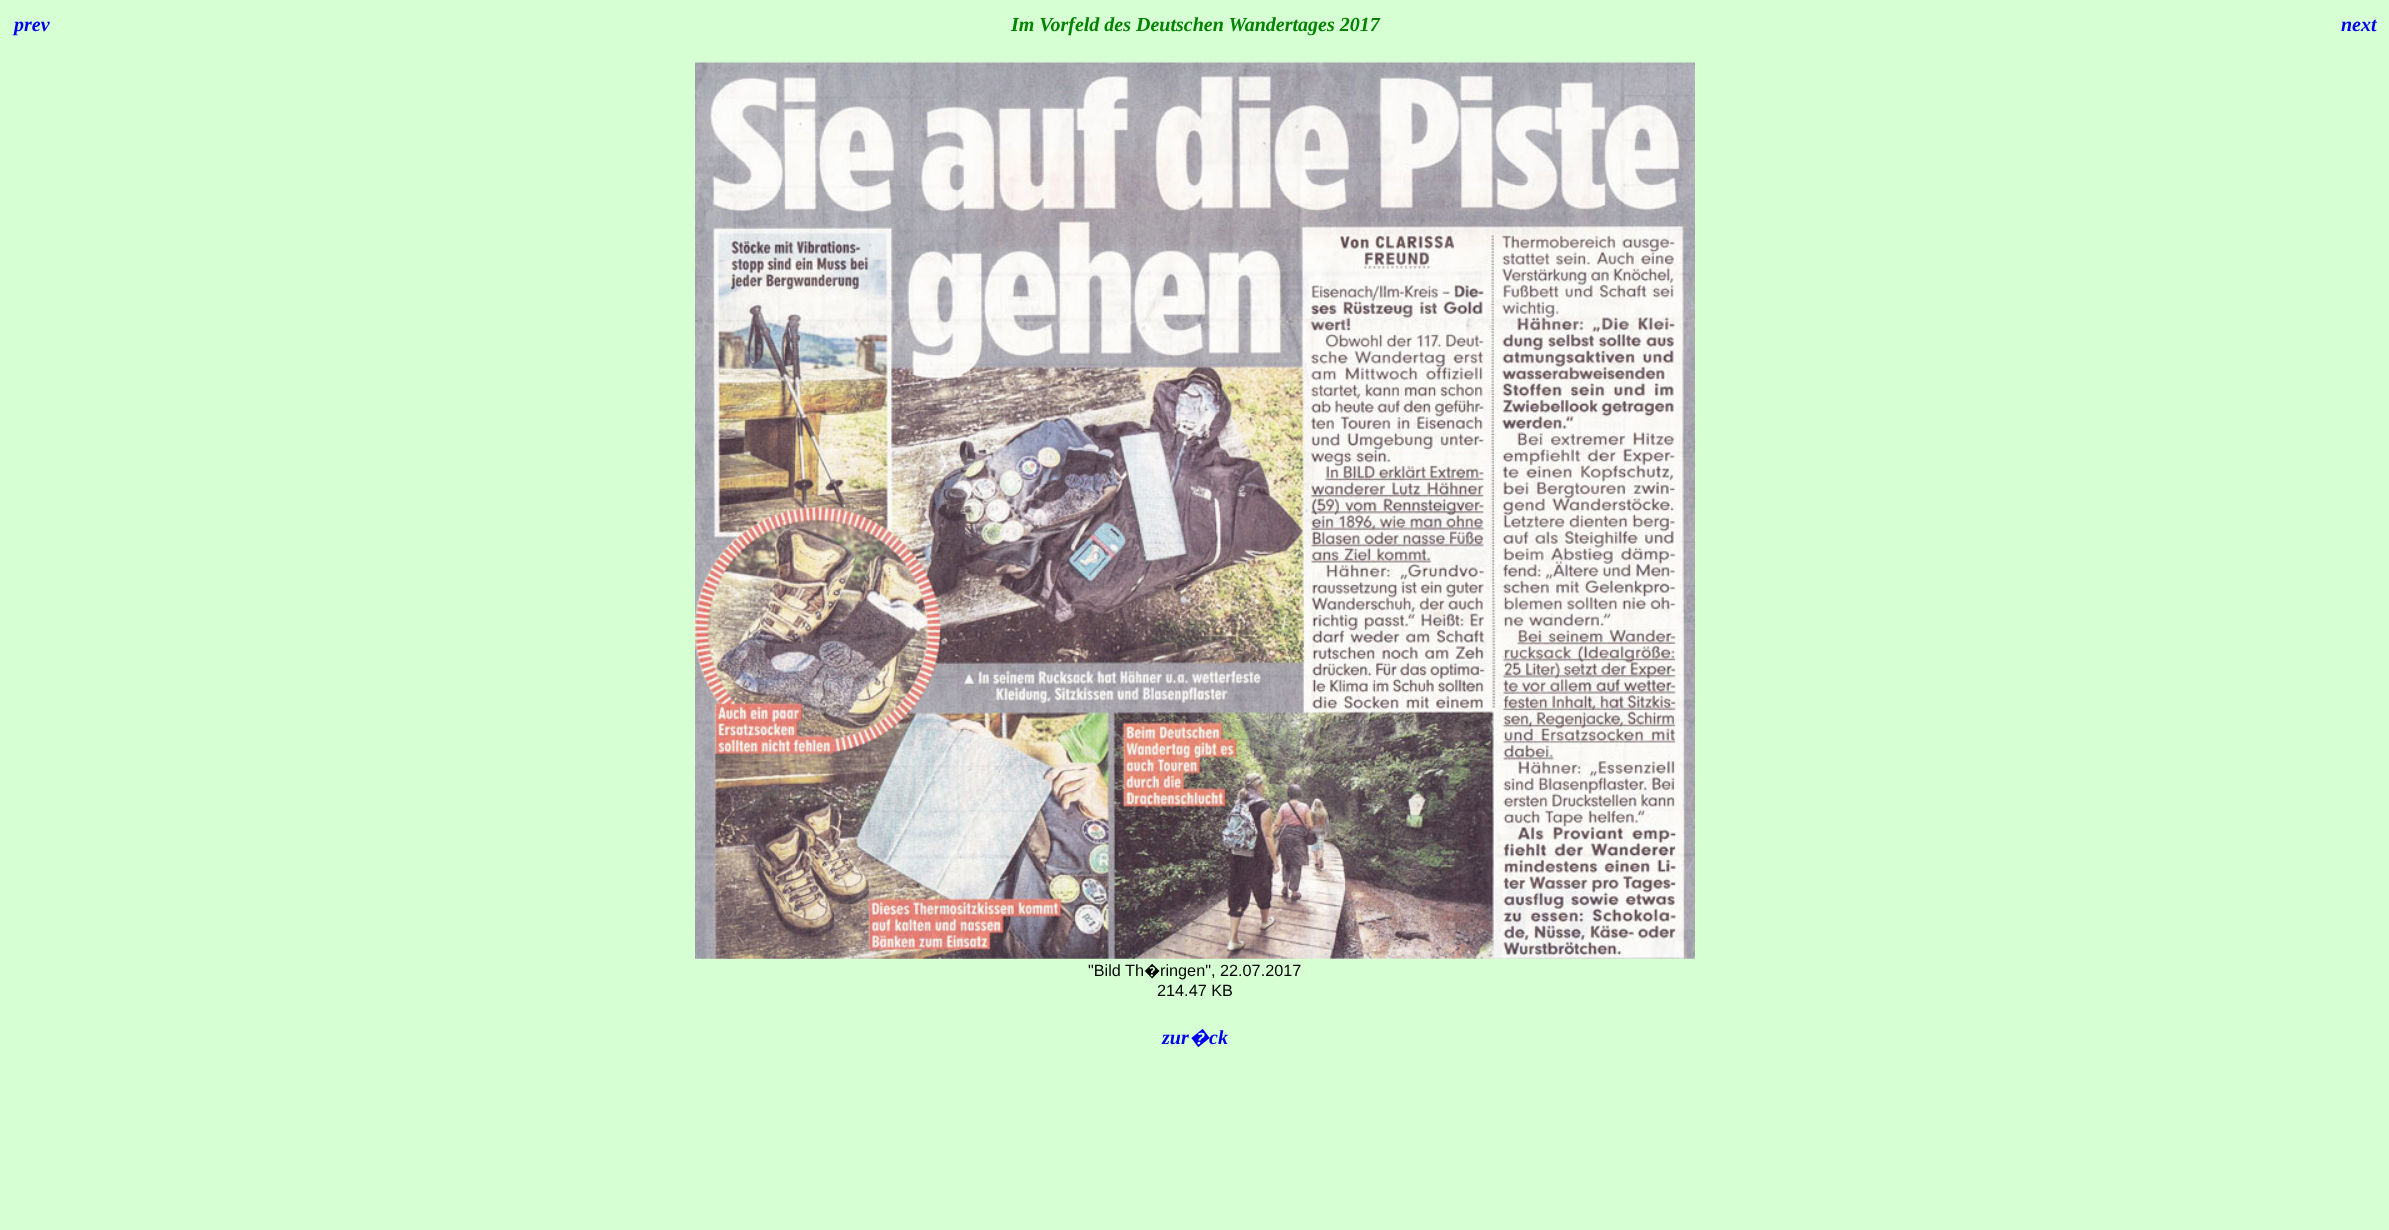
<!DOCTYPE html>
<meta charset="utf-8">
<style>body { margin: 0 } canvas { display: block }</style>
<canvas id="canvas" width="2389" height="1230"></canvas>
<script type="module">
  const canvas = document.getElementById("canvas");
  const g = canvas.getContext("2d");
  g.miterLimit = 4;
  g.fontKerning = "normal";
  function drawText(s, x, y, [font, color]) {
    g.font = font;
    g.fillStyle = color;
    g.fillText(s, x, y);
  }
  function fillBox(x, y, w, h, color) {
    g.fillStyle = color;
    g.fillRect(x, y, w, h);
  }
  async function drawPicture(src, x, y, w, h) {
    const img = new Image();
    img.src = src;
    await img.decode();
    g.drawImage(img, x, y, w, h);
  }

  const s1 = ["italic bold 20px Liberation Serif", "#0000EE"];
  const s2 = ["italic bold 20px Liberation Serif", "#008400"];
  const s3 = ["16.25px Liberation Sans", "#000000"];
  const s4 = ["16.25px Noto Sans", "#000000"];
  const s5 = ["italic bold 20px Noto Sans", "#0000EE"];

  fillBox(0, 0, 2389, 1230, "#D6FFD3");
  drawText("prev", 14, 31, s1);
  drawText("Im Vorfeld des Deutschen Wandertages 2017", 1011, 31, s2);
  drawText("next", 2341, 31, s1);
  await drawPicture("pic1.png", 695, 62, 1000, 897);
  drawText("\"Bild Th", 1088, 976, s3);
  drawText("�", 1144, 976, s4);
  drawText("ringen\", 22.07.2017", 1160, 976, s3);
  drawText("214.47 KB", 1157, 996, s3);
  drawText("zur", 1162, 1044, s1);
  drawText("�", 1189, 1044, s5);
  drawText("ck", 1209, 1044, s1);
</script>
